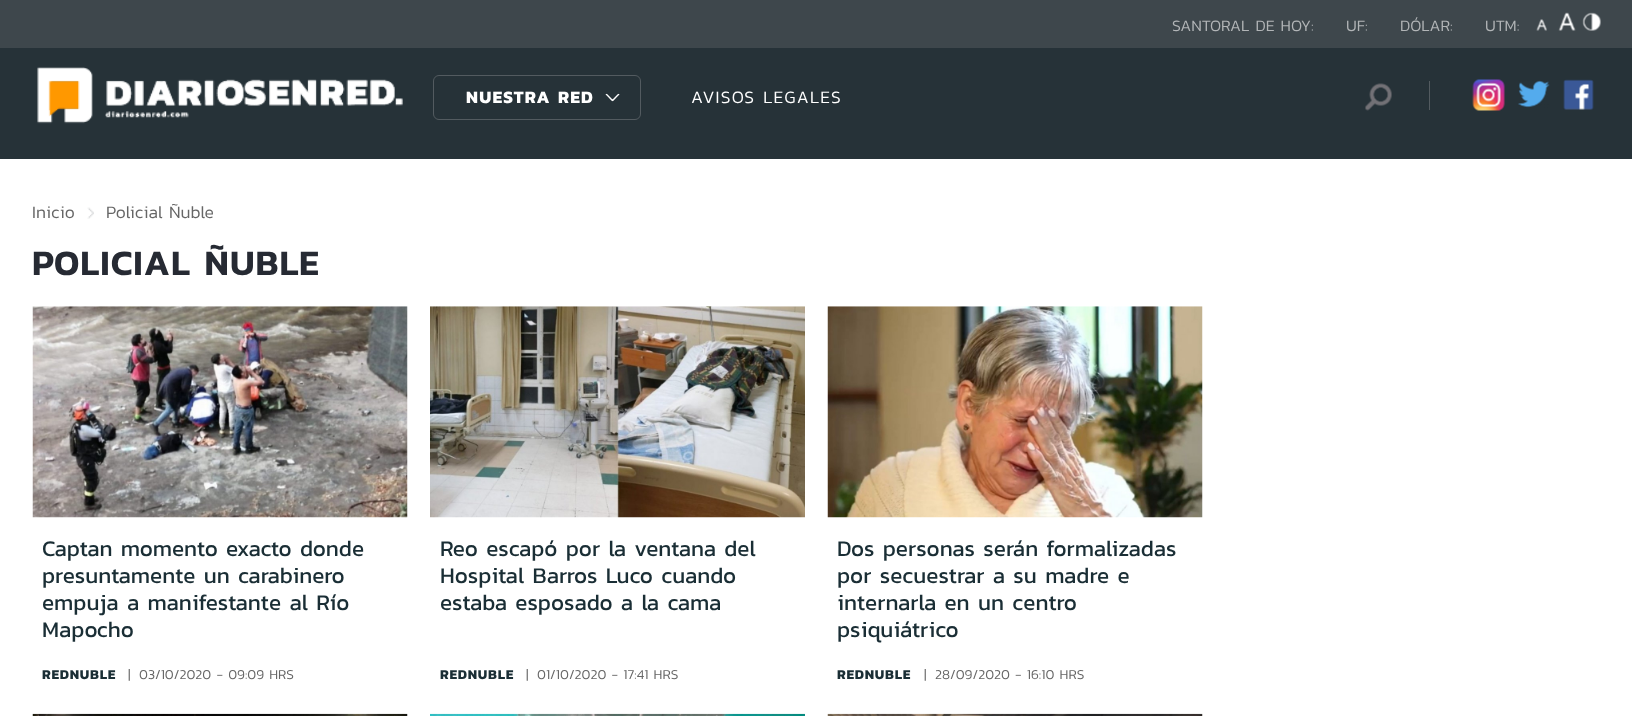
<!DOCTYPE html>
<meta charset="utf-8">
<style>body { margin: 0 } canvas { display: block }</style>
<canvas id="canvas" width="1632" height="716"></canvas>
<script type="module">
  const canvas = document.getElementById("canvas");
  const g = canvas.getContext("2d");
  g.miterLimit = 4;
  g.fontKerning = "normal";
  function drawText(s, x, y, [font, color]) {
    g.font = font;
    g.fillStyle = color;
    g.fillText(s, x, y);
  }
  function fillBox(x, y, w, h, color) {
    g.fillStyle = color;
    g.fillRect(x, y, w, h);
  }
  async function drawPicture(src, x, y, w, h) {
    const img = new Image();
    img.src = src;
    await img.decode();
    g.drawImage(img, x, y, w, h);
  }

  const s1 = ["300 16px Kanit", "#B2B5B7"];
  const s2 = ["bold 17.5px Kanit", "#FFFFFF"];
  const s3 = ["300 17.5px Kanit", "#FFFFFF"];
  const s4 = ["300 17.5px Kanit", "#666666"];
  const s5 = ["600 36px Kanit", "#262A33"];
  const s6 = ["22.5px Kanit", "#1A2E35"];
  const s7 = ["bold 13.75px Kanit", "#1A2E35"];
  const s8 = ["300 13.75px Kanit", "#666666"];

  fillBox(0, 0, 1632, 716, "#FFFFFF");
  fillBox(0, 48, 1632, 111, "#263238");
  fillBox(0, 0, 1632, 48, "#3E474C");
  drawText("SANTORAL DE HOY:", 1172, 31, s1);
  drawText("UF:", 1346, 31, s1);
  drawText("DÓLAR:", 1400, 31, s1);
  drawText("UTM:", 1485, 31, s1);
  await drawPicture("pic1.png", 1536, 19, 11, 12);
  await drawPicture("pic2.png", 1558, 12, 18, 19);
  await drawPicture("pic3.png", 1582, 12, 19, 19);
  await drawPicture("pic4.png", 37, 67, 366, 57);
  await drawPicture("pic5.png", 605, 93, 15, 9);
  g.beginPath();
  g.roundRect(433.5, 75.5, 207, 44, 5.5);
  g.strokeStyle = "#535B60";
  g.stroke();
  g.letterSpacing = "1.25px";
  drawText("NUESTRA RED", 466, 103, s2);
  drawText("AVISOS LEGALES", 691, 103, s3);
  await drawPicture("pic6.png", 1365, 83, 27, 28);
  fillBox(1429, 81, 1, 29, "#535B60");
  await drawPicture("pic7.png", 1472, 79, 33, 32);
  await drawPicture("pic8.png", 1518, 80, 32, 28);
  await drawPicture("pic9.png", 1563, 79, 31, 31);
  g.letterSpacing = "0px";
  drawText("Inicio", 32, 218, s4);
  await drawPicture("pic10.png", 87, 207, 7, 12);
  drawText("Policial", 106, 218, s4);
  drawText("Ñuble", 169, 218, s4);
  g.letterSpacing = "1px";
  drawText("POLICIAL ÑUBLE", 32, 275, s5);
  await drawPicture("pic11.png", 32, 306, 376, 212);
  g.letterSpacing = "0px";
  drawText("Captan momento exacto donde", 42, 556, s6);
  drawText("presuntamente un carabinero", 42, 583, s6);
  drawText("empuja a manifestante al Río", 42, 610, s6);
  drawText("Mapocho", 42, 637, s6);
  g.letterSpacing = "0.75px";
  drawText("REDNUBLE", 42, 679, s7);
  drawText("|", 128, 679, s8);
  g.letterSpacing = "0px";
  drawText("03/10/2020 - 09:09 HRS", 139, 679, s8);
  await drawPicture("pic12.png", 430, 306, 375, 212);
  drawText("Reo escapó por la ventana del", 440, 556, s6);
  drawText("Hospital Barros Luco cuando", 440, 583, s6);
  drawText("estaba esposado a la cama", 440, 610, s6);
  g.letterSpacing = "0.75px";
  drawText("REDNUBLE", 440, 679, s7);
  drawText("|", 526, 679, s8);
  g.letterSpacing = "0px";
  drawText("01/10/2020 - 17:41 HRS", 537, 679, s8);
  await drawPicture("pic13.png", 827, 306, 376, 212);
  drawText("Dos personas serán formalizadas", 837, 556, s6);
  drawText("por secuestrar a su madre e", 837, 583, s6);
  drawText("internarla en un centro", 837, 610, s6);
  drawText("psiquiátrico", 837, 637, s6);
  g.letterSpacing = "0.75px";
  drawText("REDNUBLE", 837, 679, s7);
  drawText("|", 924, 679, s8);
  g.letterSpacing = "0px";
  drawText("28/09/2020 - 16:10 HRS", 935, 679, s8);
  await drawPicture("pic14.png", 32, 713, 376, 3);
  await drawPicture("pic15.png", 430, 713, 375, 3);
  await drawPicture("pic16.png", 827, 713, 376, 3);
</script>
